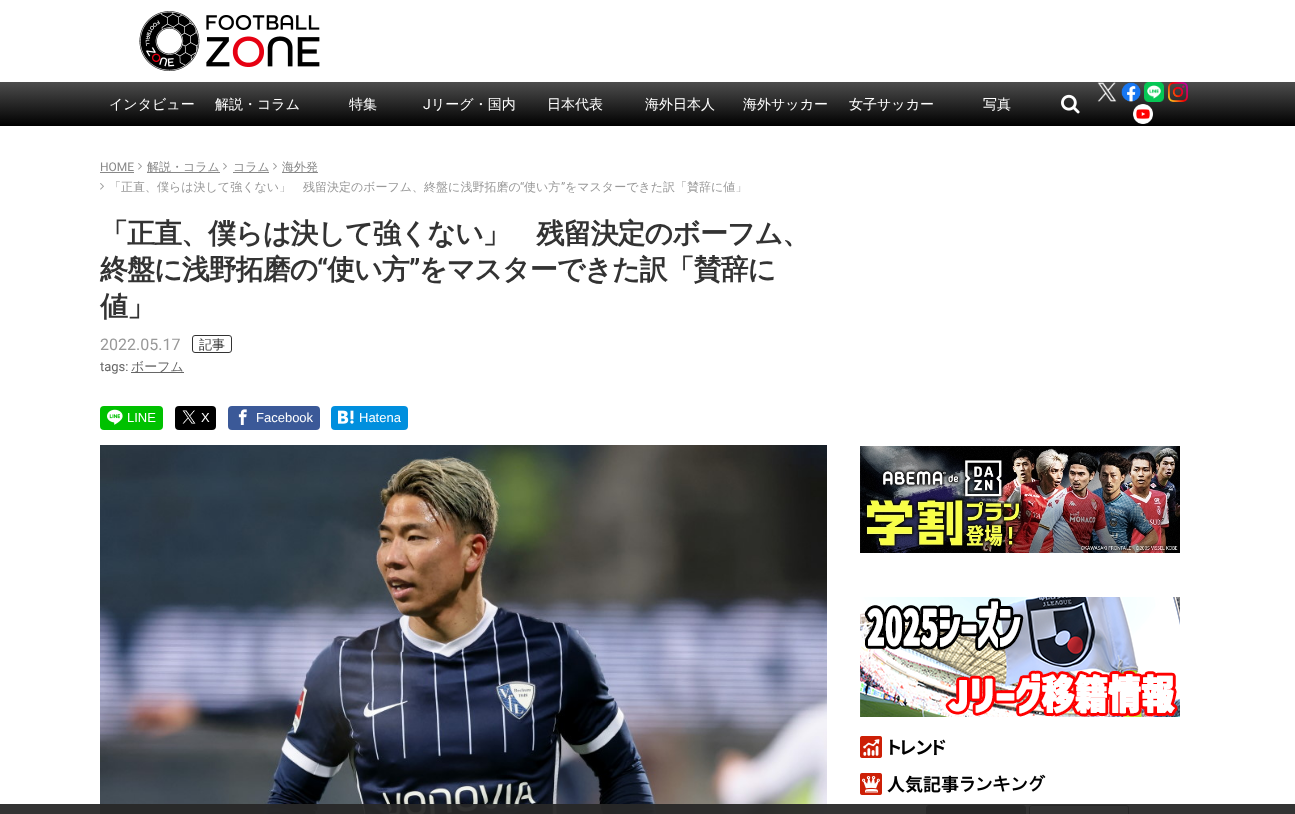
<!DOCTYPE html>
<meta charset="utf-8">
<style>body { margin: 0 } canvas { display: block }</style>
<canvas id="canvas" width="1295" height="814"></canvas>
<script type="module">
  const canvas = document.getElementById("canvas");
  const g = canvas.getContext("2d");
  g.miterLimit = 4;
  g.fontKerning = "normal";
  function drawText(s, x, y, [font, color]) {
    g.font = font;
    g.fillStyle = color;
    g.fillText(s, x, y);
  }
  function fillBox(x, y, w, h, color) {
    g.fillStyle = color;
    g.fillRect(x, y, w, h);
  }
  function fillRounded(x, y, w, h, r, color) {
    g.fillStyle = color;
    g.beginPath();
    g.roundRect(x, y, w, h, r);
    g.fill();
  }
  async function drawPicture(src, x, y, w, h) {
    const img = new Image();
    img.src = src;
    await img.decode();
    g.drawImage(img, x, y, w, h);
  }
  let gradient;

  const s1 = ["500 14px WenQuanYi Zen Hei", "#FFFFFF"];
  const s2 = ["14px Roboto", "#FFFFFF"];
  const s3 = ["12px Roboto", "#888888"];
  const s4 = ["500 12px WenQuanYi Zen Hei", "#888888"];
  const s5 = ["500 12px WenQuanYi Zen Hei", "#999999"];
  const s6 = ["12px Roboto", "#999999"];
  const s7 = ["bold 28px WenQuanYi Zen Hei", "#333333"];
  const s8 = ["bold 28px Roboto", "#333333"];
  const s9 = ["16px Roboto", "#999999"];
  const s10 = ["500 13px WenQuanYi Zen Hei", "#333333"];
  const s11 = ["13px Roboto", "#666666"];
  const s12 = ["500 13px WenQuanYi Zen Hei", "#666666"];
  const s13 = ["13px Liberation Sans", "#FFFFFF"];

  fillBox(0, 0, 1295, 814, "#FFFFFF");
  await drawPicture("pic1.png", 139, 11, 181, 60);
  gradient = g.createLinearGradient(648, 82, 648, 126);
  gradient.addColorStop(0, "#4D4D4D");
  gradient.addColorStop(1, "#000000");
  g.fillStyle = gradient;
  g.fillRect(0, 82, 1295, 44);
  drawText("インタビュー", 109, 109, s1);
  drawText("解説・コラム", 215, 109, s1);
  drawText("特集", 349, 109, s1);
  drawText("J", 423, 109, s2);
  drawText("リーグ・国内", 431, 109, s1);
  drawText("日本代表", 547, 109, s1);
  drawText("海外日本人", 645, 109, s1);
  drawText("海外サッカー", 743, 109, s1);
  drawText("女子サッカー", 849, 109, s1);
  drawText("写真", 983, 109, s1);
  await drawPicture("pic2.png", 1061, 94, 19, 20);
  await drawPicture("pic3.png", 1097, 82, 20, 20);
  await drawPicture("pic4.png", 1121, 82, 20, 20);
  await drawPicture("pic5.png", 1144, 82, 20, 20);
  await drawPicture("pic6.png", 1168, 82, 20, 20);
  await drawPicture("pic7.png", 1133, 104, 20, 20);
  drawText("HOME", 100, 171, s3);
  fillBox(100, 172, 34, 1, "#888888");
  await drawPicture("pic8.png", 138, 163, 4, 7);
  fillBox(147, 172, 73, 1, "#888888");
  drawText("解説・コラム", 147, 171, s4);
  await drawPicture("pic8.png", 223, 163, 4, 7);
  fillBox(233, 172, 36, 1, "#888888");
  drawText("コラム", 233, 171, s4);
  await drawPicture("pic8.png", 273, 163, 4, 7);
  fillBox(282, 172, 36, 1, "#888888");
  drawText("海外発", 282, 171, s4);
  await drawPicture("pic8.png", 100, 183, 4, 7);
  drawText("「正直、僕らは決して強くない」　残留決定のボーフム、終盤に浅野拓磨の", 109, 191, s5);
  drawText("“", 520, 191, s6);
  drawText("使い方", 524, 191, s5);
  drawText("”", 561, 191, s6);
  drawText("をマスターできた訳「賛辞に値」", 565, 191, s5);
  g.letterSpacing = "-1px";
  drawText("「正直、僕らは決して強くない」　残留決定のボーフム、", 100, 243, s7);
  drawText("終盤に浅野拓磨の", 100, 279, s7);
  drawText("“", 317, 279, s8);
  drawText("使い方", 327, 279, s7);
  drawText("”", 409, 279, s8);
  drawText("をマスターできた訳「賛辞に", 419, 279, s7);
  drawText("値」", 100, 316, s7);
  g.letterSpacing = "0px";
  drawText("2022.05.17", 100, 350, s9);
  g.beginPath();
  g.roundRect(192.5, 335.5, 39, 17, 2.5);
  g.strokeStyle = "#333333";
  g.stroke();
  drawText("記事", 199, 349, s10);
  drawText("tags:", 100, 371, s11);
  fillBox(131, 372, 53, 1, "#666666");
  drawText("ボーフム", 131, 371, s12);
  fillRounded(100, 406, 63, 24, 4, "#00C100");
  await drawPicture("pic9.png", 107, 409, 16, 16);
  drawText("LINE", 127, 422, s13);
  fillRounded(175, 406, 41, 24, 4, "#000000");
  await drawPicture("pic10.png", 182, 410, 14, 14);
  drawText("X", 201, 422, s13);
  fillRounded(228, 406, 92, 24, 4, "#3B5998");
  await drawPicture("pic11.png", 238, 409, 9, 16);
  drawText("Facebook", 256, 422, s13);
  fillRounded(331, 406, 77, 24, 4, "#008FDE");
  await drawPicture("pic12.png", 338, 410, 16, 14);
  drawText("Hatena", 359, 422, s13);
  await drawPicture("pic13.png", 100, 445, 727, 369);
  await drawPicture("pic14.png", 860, 446, 320, 107);
  await drawPicture("pic15.png", 860, 597, 320, 120);
  await drawPicture("pic16.png", 860, 736, 86, 22);
  await drawPicture("pic17.png", 860, 773, 186, 22);
  g.fillStyle = "#333333";
  g.beginPath();
  g.roundRect(926.5, 805.5, 99, 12, 2.5);
  g.fill();
  g.stroke();
  g.beginPath();
  g.roundRect(1029.5, 805.5, 99, 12, 2.5);
  g.stroke();
  fillBox(0, 804, 1295, 10, "rgba(40, 40, 40, 0.95)");
</script>
